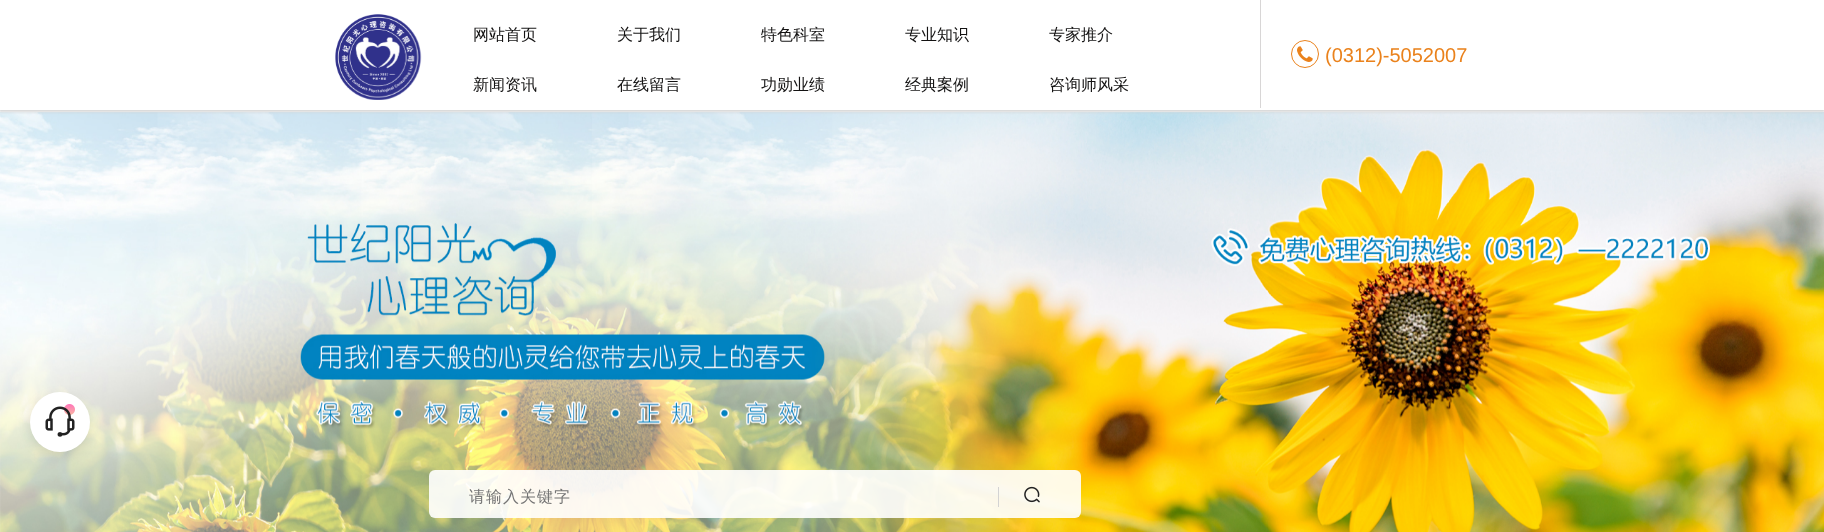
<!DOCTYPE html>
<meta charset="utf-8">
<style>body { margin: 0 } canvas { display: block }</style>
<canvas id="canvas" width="1824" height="532"></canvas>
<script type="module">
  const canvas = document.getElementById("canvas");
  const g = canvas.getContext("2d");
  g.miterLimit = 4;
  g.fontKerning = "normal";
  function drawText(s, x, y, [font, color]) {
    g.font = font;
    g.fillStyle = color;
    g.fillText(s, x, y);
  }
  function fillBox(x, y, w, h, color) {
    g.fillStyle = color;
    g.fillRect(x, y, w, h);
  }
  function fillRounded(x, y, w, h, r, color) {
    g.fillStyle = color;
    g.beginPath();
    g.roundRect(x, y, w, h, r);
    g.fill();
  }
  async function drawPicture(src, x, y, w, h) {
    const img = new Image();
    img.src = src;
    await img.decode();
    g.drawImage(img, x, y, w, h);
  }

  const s1 = ["500 16px WenQuanYi Zen Hei", "#131212"];
  const s2 = ["20px Liberation Sans", "#EA821C"];
  const s3 = ["500 16px WenQuanYi Zen Hei", "#757575"];

  fillBox(0, 0, 1824, 532, "#FFFFFF");
  await drawPicture("pic3.png", 0, 112, 1824, 420);
  g.save();
  g.beginPath();
  g.rect(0, 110, 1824, 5);
  g.clip();
  g.fillStyle = "#D4D4D4";
  g.filter = "blur(1.5px)";
  g.beginPath();
  g.rect(-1, 0, 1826, 112);
  g.fill();
  g.filter = "none";
  g.restore();
  await drawPicture("pic1.png", 335, 14, 87, 86);
  drawText("网站首页", 473, 40, s1);
  drawText("关于我们", 617, 40, s1);
  drawText("特色科室", 761, 40, s1);
  drawText("专业知识", 905, 40, s1);
  drawText("专家推介", 1049, 40, s1);
  drawText("新闻资讯", 473, 90, s1);
  drawText("在线留言", 617, 90, s1);
  drawText("功勋业绩", 761, 90, s1);
  drawText("经典案例", 905, 90, s1);
  drawText("咨询师风采", 1049, 90, s1);
  fillBox(1260, 0, 1, 108, "#D8D6D6");
  g.beginPath();
  g.arc(1305, 54, 13.5, 0, Math.PI * 2);
  g.strokeStyle = "#EA821C";
  g.stroke();
  await drawPicture("pic2.png", 1297, 46, 16, 16);
  drawText("(0312)-5052007", 1325, 62, s2);
  g.fillStyle = "rgba(0, 0, 0, 0.1)";
  g.filter = "blur(6px)";
  g.beginPath();
  g.roundRect(30, 396, 60, 60, 30);
  g.fill();
  g.filter = "none";
  g.fillStyle = "#FFFFFF";
  g.beginPath();
  g.arc(60, 422, 30, 0, Math.PI * 2);
  g.fill();
  await drawPicture("pic4.png", 45, 404, 30, 33);
  fillRounded(429, 470, 652, 48, 6, "rgba(255, 255, 255, 0.9)");
  fillBox(998, 487, 1, 20, "#D3D3D3");
  g.letterSpacing = "1px";
  drawText("请输入关键字", 469, 502, s3);
  await drawPicture("pic5.png", 1024, 486, 16, 17);
</script>
